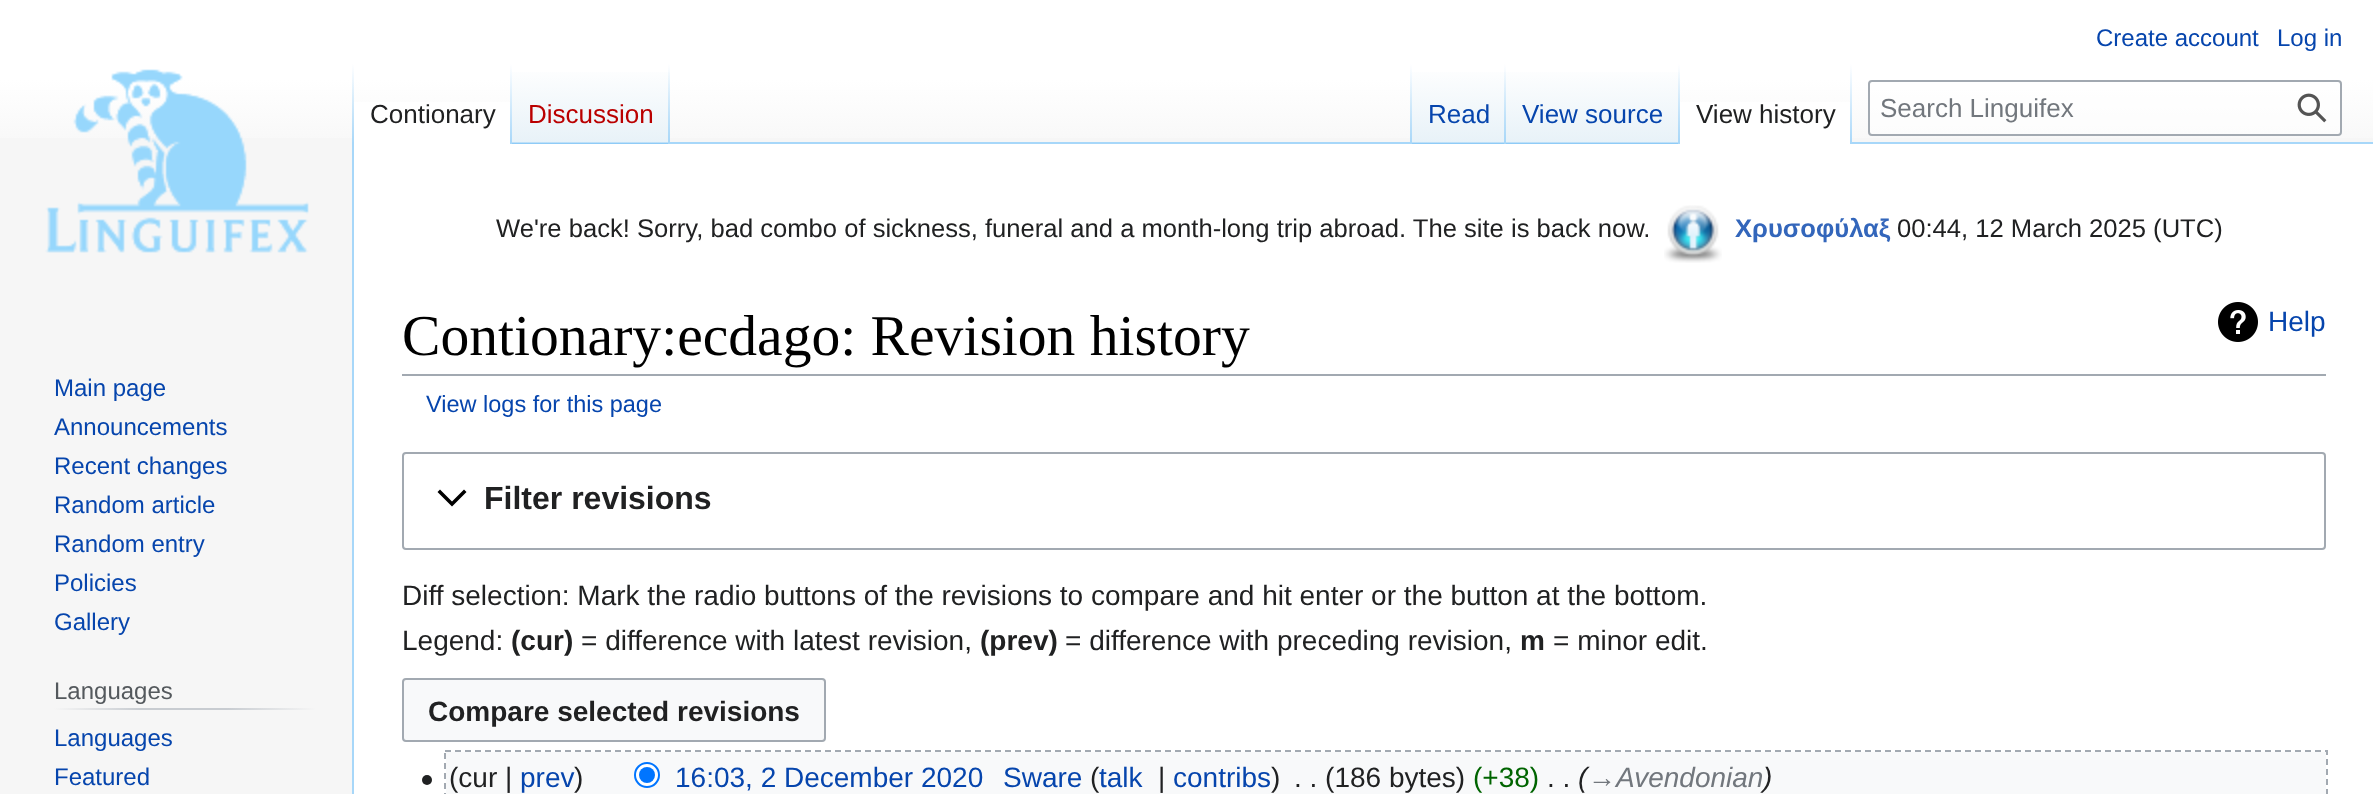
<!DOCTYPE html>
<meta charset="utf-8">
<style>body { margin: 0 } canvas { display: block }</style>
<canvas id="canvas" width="2373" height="794"></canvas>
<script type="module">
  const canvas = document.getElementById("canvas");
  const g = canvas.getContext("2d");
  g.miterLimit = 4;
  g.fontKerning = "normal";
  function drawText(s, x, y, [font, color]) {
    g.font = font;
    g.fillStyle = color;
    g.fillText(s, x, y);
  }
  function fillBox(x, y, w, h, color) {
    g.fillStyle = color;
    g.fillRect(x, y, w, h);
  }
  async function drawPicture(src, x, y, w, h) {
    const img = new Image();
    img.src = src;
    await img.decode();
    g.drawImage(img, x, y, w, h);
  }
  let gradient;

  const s1 = ["24px Liberation Sans", "#0645AD"];
  const s2 = ["26px Liberation Sans", "#202122"];
  const s3 = ["26px Liberation Sans", "#BA0000"];
  const s4 = ["26px Liberation Sans", "#0645AD"];
  const s5 = ["26px Liberation Sans", "#72777D"];
  const s6 = ["24px Liberation Sans", "#54595D"];
  const s7 = ["25.6px Liberation Sans", "#202122"];
  const s8 = ["bold 25.6px Liberation Sans", "#3366BB"];
  const s9 = ["57.6px Liberation Serif", "#000000"];
  const s10 = ["28px Liberation Sans", "#0645AD"];
  const s11 = ["23.5px Liberation Sans", "#0645AD"];
  const s12 = ["bold 32px Liberation Sans", "#202122"];
  const s13 = ["28px Liberation Sans", "#202122"];
  const s14 = ["bold 28px Liberation Sans", "#202122"];
  const s15 = ["28px Liberation Sans", "#006400"];
  const s16 = ["italic 28px Liberation Sans", "#202122"];
  const s17 = ["italic 28px Liberation Sans", "#72777D"];

  fillBox(0, 0, 2373, 794, "#F6F6F6");
  gradient = g.createLinearGradient(1187, 0, 1187, 160);
  gradient.addColorStop(0.5, "#FFFFFF");
  gradient.addColorStop(1, "#F6F6F6");
  g.fillStyle = gradient;
  g.fillRect(0, 0, 2373, 138);
  drawText("Create account", 2096, 46, s1);
  drawText("Log in", 2277, 46, s1);
  fillBox(352, 142, 2, 652, "#A7D7F9");
  gradient = g.createLinearGradient(353, 64, 353, 144);
  gradient.addColorStop(0, "rgba(167, 215, 249, 0)");
  gradient.addColorStop(1, "#A7D7F9");
  g.fillStyle = gradient;
  g.fillRect(352, 64, 2, 80);
  fillBox(354, 102, 156, 42, "#FFFFFF");
  gradient = g.createLinearGradient(511, 64, 511, 144);
  gradient.addColorStop(0, "#FFFFFF");
  gradient.addColorStop(1, "#A7D7F9");
  g.fillStyle = gradient;
  g.fillRect(510, 64, 2, 80);
  drawText("Contionary", 370, 123, s2);
  gradient = g.createLinearGradient(591, 144, 591, 64);
  gradient.addColorStop(0, "#77C1F6");
  gradient.addColorStop(0.03, "#E8F2F8");
  gradient.addColorStop(1, "#FFFFFF");
  g.fillStyle = gradient;
  g.fillRect(512, 72, 158, 72);
  gradient = g.createLinearGradient(669, 64, 669, 144);
  gradient.addColorStop(0, "rgba(167, 215, 249, 0)");
  gradient.addColorStop(1, "#A7D7F9");
  g.fillStyle = gradient;
  g.fillRect(668, 64, 2, 80);
  drawText("Discussion", 528, 123, s3);
  fillBox(670, 142, 1703, 2, "#A7D7F9");
  gradient = g.createLinearGradient(1411, 64, 1411, 144);
  gradient.addColorStop(0, "rgba(167, 215, 249, 0)");
  gradient.addColorStop(1, "#A7D7F9");
  g.fillStyle = gradient;
  g.fillRect(1410, 64, 2, 80);
  gradient = g.createLinearGradient(1459, 144, 1459, 64);
  gradient.addColorStop(0, "#77C1F6");
  gradient.addColorStop(0.03, "#E8F2F8");
  gradient.addColorStop(1, "#FFFFFF");
  g.fillStyle = gradient;
  g.fillRect(1412, 72, 94, 72);
  gradient = g.createLinearGradient(1505, 64, 1505, 144);
  gradient.addColorStop(0, "rgba(167, 215, 249, 0)");
  gradient.addColorStop(1, "#A7D7F9");
  g.fillStyle = gradient;
  g.fillRect(1504, 64, 2, 80);
  drawText("Read", 1428, 123, s4);
  gradient = g.createLinearGradient(1593, 144, 1593, 64);
  gradient.addColorStop(0, "#77C1F6");
  gradient.addColorStop(0.03, "#E8F2F8");
  gradient.addColorStop(1, "#FFFFFF");
  g.fillStyle = gradient;
  g.fillRect(1506, 72, 174, 72);
  gradient = g.createLinearGradient(1679, 64, 1679, 144);
  gradient.addColorStop(0, "rgba(167, 215, 249, 0)");
  gradient.addColorStop(1, "#A7D7F9");
  g.fillStyle = gradient;
  g.fillRect(1678, 64, 2, 80);
  drawText("View source", 1522, 123, s4);
  fillBox(1680, 102, 170, 42, "#FFFFFF");
  gradient = g.createLinearGradient(1851, 64, 1851, 144);
  gradient.addColorStop(0, "#FFFFFF");
  gradient.addColorStop(1, "#A7D7F9");
  g.fillStyle = gradient;
  g.fillRect(1850, 64, 2, 80);
  drawText("View history", 1696, 123, s2);
  g.fillStyle = "rgba(255, 255, 255, 0.5)";
  g.beginPath();
  g.roundRect(1869, 81, 472, 54, 3);
  g.fill();
  g.strokeStyle = "#A2A9B1";
  g.lineWidth = 2;
  g.stroke();
  drawText("Search Linguifex", 1880, 117, s5);
  await drawPicture("pic1.png", 2297, 93, 30, 30);
  await drawPicture("pic2.png", 45, 69, 264, 184);
  drawText("Main page", 54, 396, s1);
  drawText("Announcements", 54, 435, s1);
  drawText("Recent changes", 54, 474, s1);
  drawText("Random article", 54, 513, s1);
  drawText("Random entry", 54, 552, s1);
  drawText("Policies", 54, 591, s1);
  drawText("Gallery", 54, 630, s1);
  gradient = g.createLinearGradient(54, 709, 316, 709);
  gradient.addColorStop(0, "#F6F6F6");
  gradient.addColorStop(0.33, "#C8CCD1");
  gradient.addColorStop(0.66, "#C8CCD1");
  gradient.addColorStop(1, "#F6F6F6");
  g.fillStyle = gradient;
  g.fillRect(54, 708, 262, 2);
  drawText("Languages", 54, 699, s6);
  drawText("Languages", 54, 746, s1);
  drawText("Featured", 54, 785, s1);
  fillBox(354, 144, 2019, 650, "#FFFFFF");
  drawText("We're back! Sorry, bad combo of sickness, funeral and a month-long trip abroad. The site is back now.", 496, 237, s7);
  await drawPicture("pic3.png", 1664, 205, 58, 58);
  drawText("Χρυσοφύλαξ", 1735, 237, s8);
  drawText("00:44, 12 March 2025 (UTC)", 1897, 237, s7);
  fillBox(402, 374, 1924, 2, "#A2A9B1");
  drawText("Contionary:ecdago: Revision history", 402, 355, s9);
  await drawPicture("pic4.png", 2218, 302, 40, 40);
  drawText("Help", 2268, 331, s10);
  drawText("View logs for this page", 426, 412, s11);
  g.beginPath();
  g.roundRect(403, 453, 1922, 96, 3);
  g.stroke();
  g.fillStyle = "#000000";
  g.beginPath();
  g.moveTo(464, 489.5);
  g.lineTo(452, 501.5);
  g.lineTo(440, 489.5);
  g.lineTo(437.5, 492);
  g.lineTo(452, 506.5);
  g.lineTo(466.5, 492);
  g.closePath();
  g.fill();
  drawText("Filter revisions", 484, 509, s12);
  drawText("Diff selection: Mark the radio buttons of the revisions to compare and hit enter or the button at the bottom.", 402, 605, s13);
  drawText("Legend:", 402, 650, s13);
  drawText("(cur)", 511, 650, s14);
  drawText("= difference with latest revision,", 581, 650, s13);
  drawText("(prev)", 980, 650, s14);
  drawText("= difference with preceding revision,", 1065, 650, s13);
  drawText("m", 1520, 650, s14);
  drawText("= minor edit.", 1553, 650, s13);
  g.fillStyle = "#F8F9FA";
  g.beginPath();
  g.roundRect(403, 679, 422, 62, 3);
  g.fill();
  g.stroke();
  drawText("Compare selected revisions", 428, 721, s14);
  fillBox(446, 752, 1880, 42, "#F8F9FA");
  await drawPicture("pic5.png", 422, 775, 10, 10);
  drawText("(cur |", 449, 787, s13);
  drawText("prev", 520, 787, s10);
  drawText(")", 574, 787, s13);
  g.fillStyle = "#FFFFFF";
  g.beginPath();
  g.arc(647, 775, 12, 0, Math.PI * 2);
  g.fill();
  g.strokeStyle = "#0075FF";
  g.stroke();
  g.fillStyle = "#0075FF";
  g.beginPath();
  g.arc(647, 775, 8, 0, Math.PI * 2);
  g.fill();
  drawText("16:03, 2 December 2020", 675, 787, s10);
  drawText("Sware", 1003, 787, s10);
  drawText("(", 1090, 787, s13);
  drawText("talk", 1099, 787, s10);
  drawText("|", 1158, 787, s13);
  drawText("contribs", 1173, 787, s10);
  drawText(")", 1271, 787, s13);
  drawText(". . (186 bytes)", 1294, 787, s13);
  drawText("(+38)", 1473, 787, s15);
  drawText(". .", 1547, 787, s13);
  drawText("(", 1578, 787, s16);
  drawText("→Avendonian", 1588, 787, s17);
  drawText(")", 1763, 787, s16);
  g.beginPath();
  g.moveTo(445, 751);
  g.lineTo(2327, 751);
  g.lineTo(2327, 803);
  g.lineTo(445, 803);
  g.closePath();
  g.strokeStyle = "#A2A9B1";
  g.setLineDash([6, 4]);
  g.stroke();
</script>
